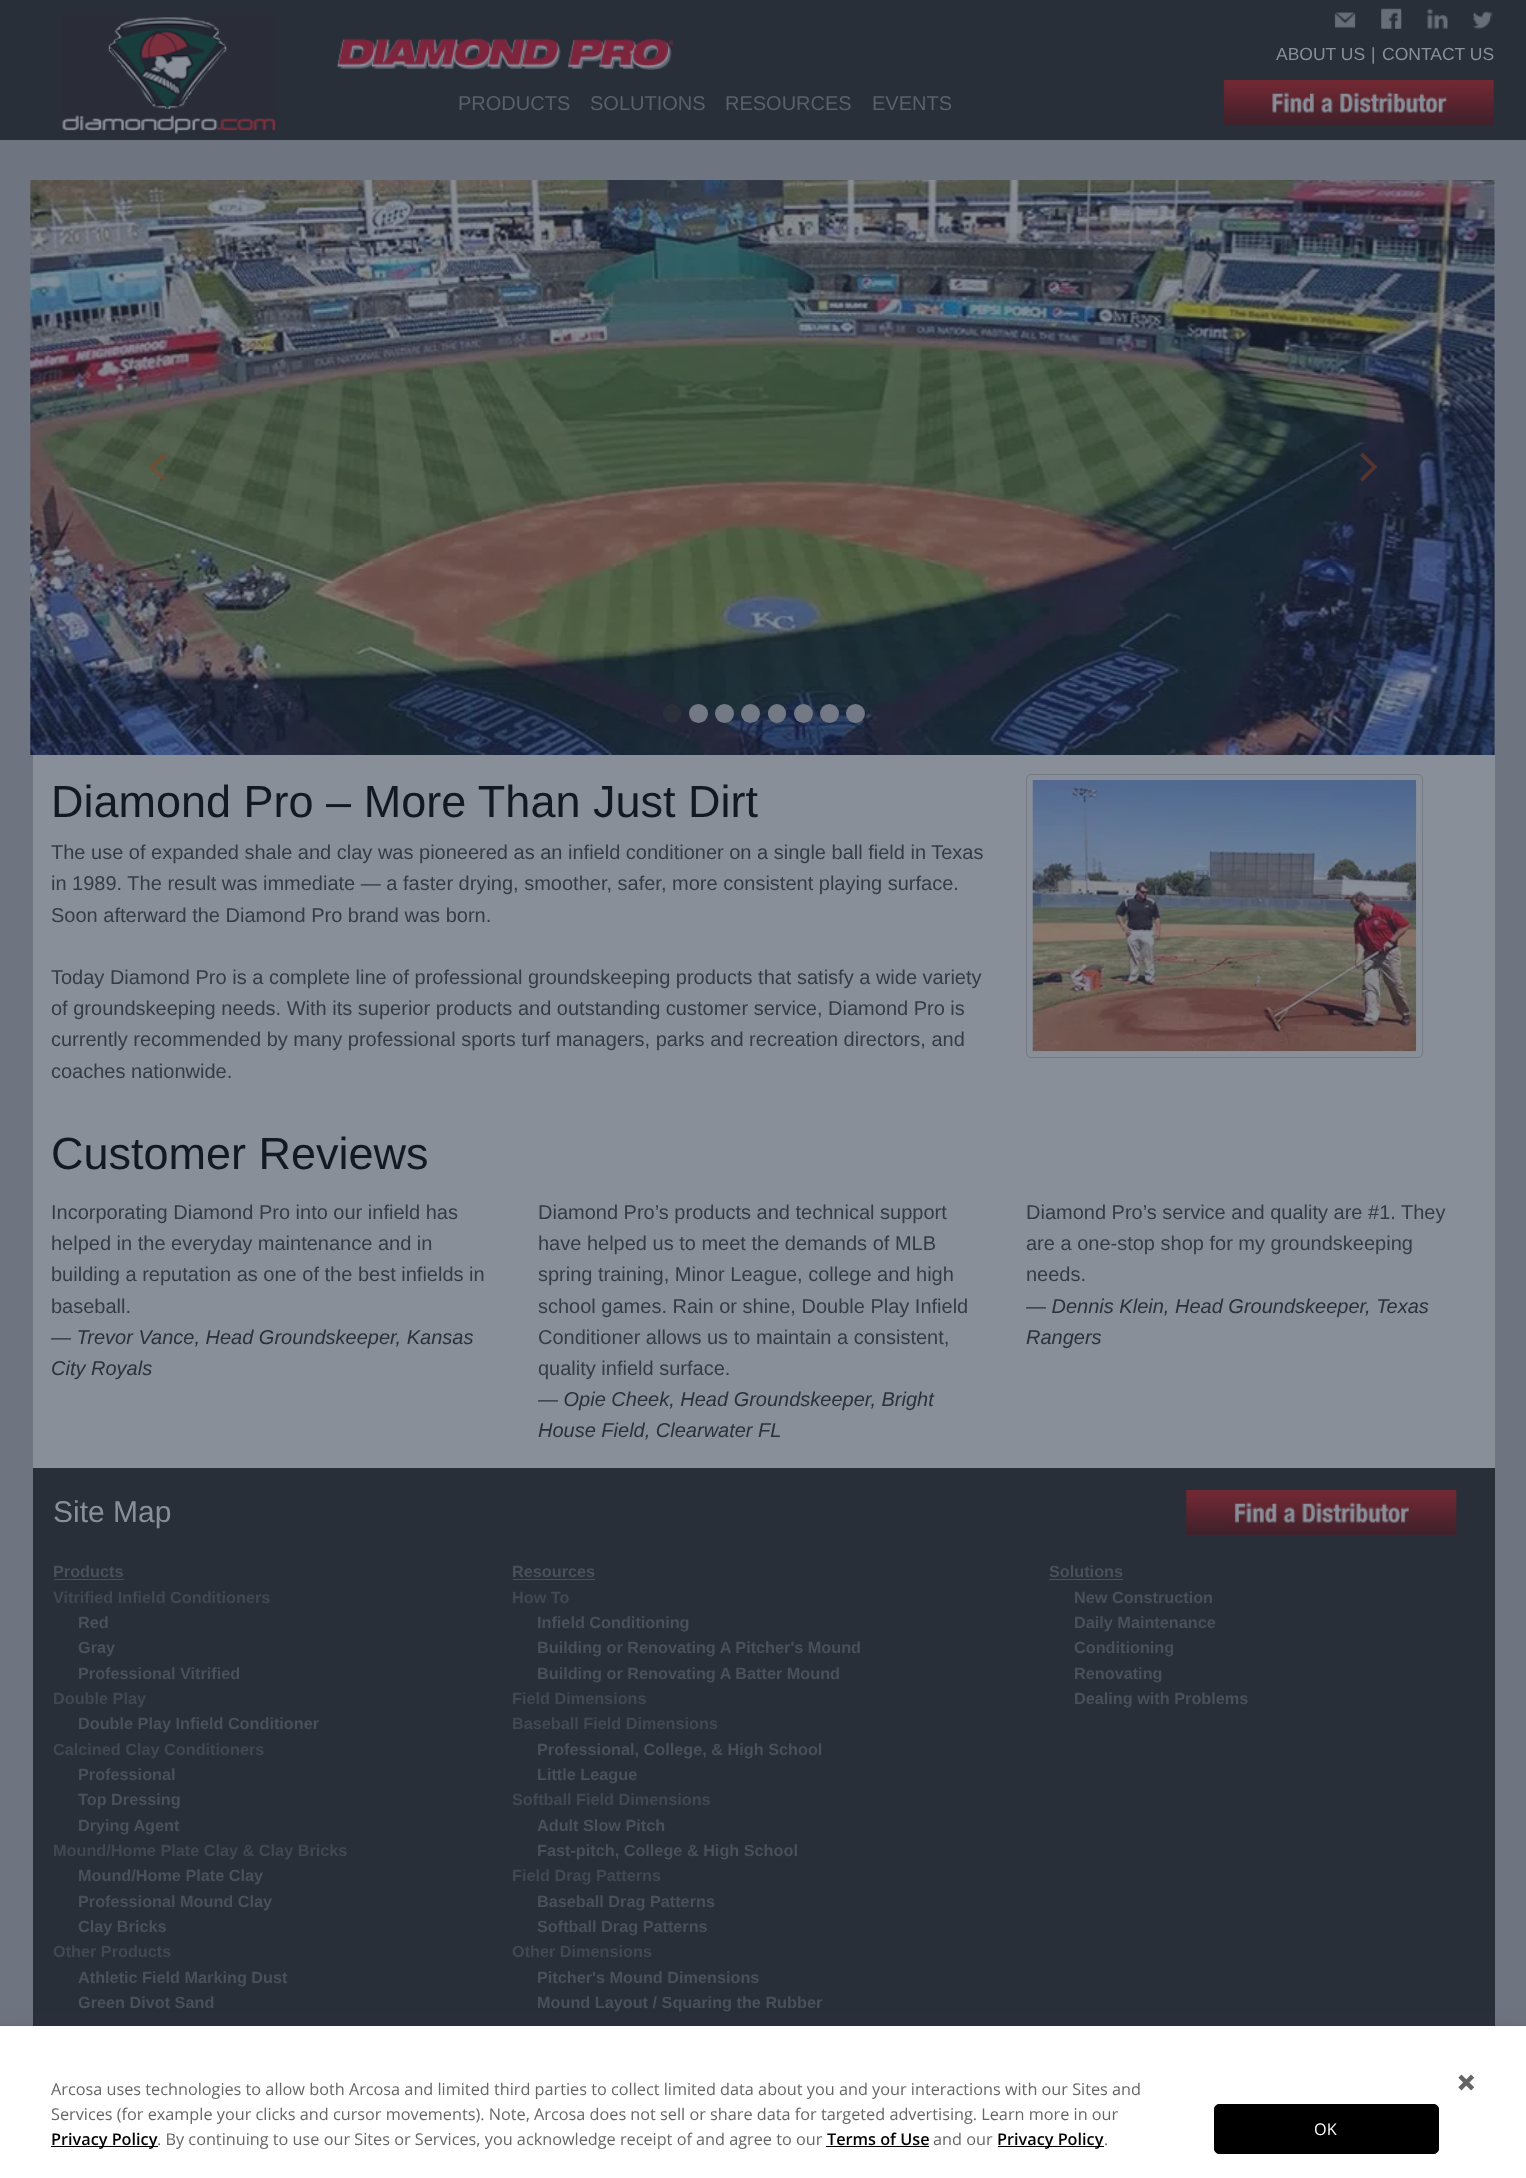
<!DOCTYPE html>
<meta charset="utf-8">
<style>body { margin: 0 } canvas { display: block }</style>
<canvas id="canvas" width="1526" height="2178"></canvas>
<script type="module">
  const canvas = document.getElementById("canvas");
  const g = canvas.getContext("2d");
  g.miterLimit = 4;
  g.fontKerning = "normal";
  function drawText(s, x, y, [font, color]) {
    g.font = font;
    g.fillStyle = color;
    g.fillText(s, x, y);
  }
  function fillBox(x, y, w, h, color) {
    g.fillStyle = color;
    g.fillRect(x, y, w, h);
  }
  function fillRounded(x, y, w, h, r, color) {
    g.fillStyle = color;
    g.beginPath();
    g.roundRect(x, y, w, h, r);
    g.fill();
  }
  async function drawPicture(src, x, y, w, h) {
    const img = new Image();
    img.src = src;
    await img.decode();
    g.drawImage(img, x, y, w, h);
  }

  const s1 = ["17.5px Liberation Sans", "#898F99"];
  const s2 = ["20px Liberation Sans", "#5A606A"];
  const s3 = ["45px Liberation Sans", "#131924"];
  const s4 = ["20px Liberation Sans", "#353B46"];
  const s5 = ["italic 20px Liberation Sans", "#2B313B"];
  const s6 = ["30px Liberation Sans", "#898F99"];
  const s7 = ["bold 16.25px Liberation Sans", "#4A505A"];
  const s8 = ["bold 16.25px Liberation Sans", "#424853"];
  const s9 = ["16.25px Open Sans", "#666666"];
  const s10 = ["600 16.25px Open Sans", "#000000"];
  const s11 = ["16.25px Open Sans", "#FFFFFF"];

  fillBox(0, 0, 1526, 2178, "#6F7580");
  fillBox(0, 0, 1526, 140, "#292F39");
  await drawPicture("pic1.png", 62, 17, 214, 117);
  await drawPicture("pic2.png", 1334, 12, 22, 16);
  await drawPicture("pic3.png", 1381, 8, 21, 21);
  await drawPicture("pic4.png", 1427, 8, 21, 21);
  await drawPicture("pic5.png", 1472, 11, 21, 18);
  drawText("ABOUT US", 1276, 60, s1);
  drawText("|", 1371, 60, s1);
  drawText("CONTACT US", 1382, 60, s1);
  await drawPicture("pic6.png", 1223, 80, 271, 45);
  await drawPicture("pic7.png", 336, 38, 339, 32);
  drawText("PRODUCTS", 458, 110, s2);
  drawText("SOLUTIONS", 590, 110, s2);
  drawText("RESOURCES", 725, 110, s2);
  drawText("EVENTS", 872, 110, s2);
  fillBox(33, 180, 1462, 1288, "#898F99");
  await drawPicture("pic8.png", 30, 180, 1465, 575);
  g.fillStyle = "rgba(137, 67, 36, 0.5)";
  g.beginPath();
  g.moveTo(154, 467);
  g.lineTo(166.5, 455.5);
  g.lineTo(164, 452.5);
  g.lineTo(148.5, 467);
  g.lineTo(164, 481.5);
  g.lineTo(166.5, 479);
  g.closePath();
  g.fill();
  g.beginPath();
  g.moveTo(1360, 455.5);
  g.lineTo(1362.5, 452.5);
  g.lineTo(1377.5, 467);
  g.lineTo(1362.5, 481.5);
  g.lineTo(1360, 479);
  g.lineTo(1372, 467);
  g.closePath();
  g.fill();
  fillRounded(663, 704, 18, 19, 9, "#2B313B");
  g.fillStyle = "#747A85";
  g.beginPath();
  g.arc(698.5, 713.5, 9.5, 0, Math.PI * 2);
  g.fill();
  g.beginPath();
  g.arc(724.5, 713.5, 9.5, 0, Math.PI * 2);
  g.fill();
  g.beginPath();
  g.arc(750.5, 713.5, 9.5, 0, Math.PI * 2);
  g.fill();
  fillRounded(768, 704, 18, 19, 9, "#747A85");
  g.beginPath();
  g.arc(803.5, 713.5, 9.5, 0, Math.PI * 2);
  g.fill();
  g.beginPath();
  g.arc(829.5, 713.5, 9.5, 0, Math.PI * 2);
  g.fill();
  g.beginPath();
  g.arc(855.5, 713.5, 9.5, 0, Math.PI * 2);
  g.fill();
  drawText("Diamond Pro – More Than Just Dirt", 51, 817, s3);
  drawText("The use of expanded shale and clay was pioneered as an infield conditioner on a single ball field in Texas", 51, 859, s4);
  drawText("in 1989. The result was immediate — a faster drying, smoother, safer, more consistent playing surface.", 51, 890, s4);
  drawText("Soon afterward the Diamond Pro brand was born.", 51, 922, s4);
  drawText("Today Diamond Pro is a complete line of professional groundskeeping products that satisfy a wide variety", 51, 984, s4);
  drawText("of groundskeeping needs. With its superior products and outstanding customer service, Diamond Pro is", 51, 1015, s4);
  drawText("currently recommended by many professional sports turf managers, parks and recreation directors, and", 51, 1046, s4);
  drawText("coaches nationwide.", 51, 1078, s4);
  g.beginPath();
  g.roundRect(1026.5, 774.5, 396, 283, 4.5);
  g.strokeStyle = "#747A85";
  g.stroke();
  await drawPicture("pic9.png", 1032, 780, 385, 272);
  drawText("Customer Reviews", 51, 1169, s3);
  drawText("Incorporating Diamond Pro into our infield has", 51, 1219, s4);
  drawText("helped in the everyday maintenance and in", 51, 1250, s4);
  drawText("building a reputation as one of the best infields in", 51, 1281, s4);
  drawText("baseball.", 51, 1313, s4);
  drawText("— Trevor Vance, Head Groundskeeper, Kansas", 51, 1344, s5);
  drawText("City Royals", 51, 1375, s5);
  drawText("Diamond Pro’s products and technical support", 538, 1219, s4);
  drawText("have helped us to meet the demands of MLB", 538, 1250, s4);
  drawText("spring training, Minor League, college and high", 538, 1281, s4);
  drawText("school games. Rain or shine, Double Play Infield", 538, 1313, s4);
  drawText("Conditioner allows us to maintain a consistent,", 538, 1344, s4);
  drawText("quality infield surface.", 538, 1375, s4);
  drawText("— Opie Cheek, Head Groundskeeper, Bright", 538, 1406, s5);
  drawText("House Field, Clearwater FL", 538, 1437, s5);
  drawText("Diamond Pro’s service and quality are #1. They", 1026, 1219, s4);
  drawText("are a one-stop shop for my groundskeeping", 1026, 1250, s4);
  drawText("needs.", 1026, 1281, s4);
  drawText("— Dennis Klein, Head Groundskeeper, Texas", 1026, 1313, s5);
  drawText("Rangers", 1026, 1344, s5);
  fillBox(33, 1468, 1462, 558, "#292F39");
  drawText("Site Map", 53, 1522, s6);
  await drawPicture("pic10.png", 1186, 1490, 271, 45);
  drawText("Products", 53, 1577, s7);
  fillBox(54, 1579, 70, 1, "#4A505A");
  drawText("Vitrified Infield Conditioners", 53, 1603, s8);
  drawText("Red", 78, 1628, s7);
  drawText("Gray", 78, 1653, s7);
  drawText("Professional Vitrified", 78, 1679, s7);
  drawText("Double Play", 53, 1704, s8);
  drawText("Double Play Infield Conditioner", 78, 1729, s7);
  drawText("Calcined Clay Conditioners", 53, 1755, s8);
  drawText("Professional", 78, 1780, s7);
  drawText("Top Dressing", 78, 1805, s7);
  drawText("Drying Agent", 78, 1831, s7);
  drawText("Mound/Home Plate Clay & Clay Bricks", 53, 1856, s8);
  drawText("Mound/Home Plate Clay", 78, 1881, s7);
  drawText("Professional Mound Clay", 78, 1907, s7);
  drawText("Clay Bricks", 78, 1932, s7);
  drawText("Other Products", 53, 1957, s8);
  drawText("Athletic Field Marking Dust", 78, 1983, s7);
  drawText("Green Divot Sand", 78, 2008, s7);
  drawText("Resources", 512, 1577, s7);
  fillBox(513, 1579, 82, 1, "#4A505A");
  drawText("How To", 512, 1603, s8);
  drawText("Infield Conditioning", 537, 1628, s7);
  drawText("Building or Renovating A Pitcher's Mound", 537, 1653, s7);
  drawText("Building or Renovating A Batter Mound", 537, 1679, s7);
  drawText("Field Dimensions", 512, 1704, s8);
  drawText("Baseball Field Dimensions", 512, 1729, s8);
  drawText("Professional, College, & High School", 537, 1755, s7);
  drawText("Little League", 537, 1780, s7);
  drawText("Softball Field Dimensions", 512, 1805, s8);
  drawText("Adult Slow Pitch", 537, 1831, s7);
  drawText("Fast-pitch, College & High School", 537, 1856, s7);
  drawText("Field Drag Patterns", 512, 1881, s8);
  drawText("Baseball Drag Patterns", 537, 1907, s7);
  drawText("Softball Drag Patterns", 537, 1932, s7);
  drawText("Other Dimensions", 512, 1957, s8);
  drawText("Pitcher's Mound Dimensions", 537, 1983, s7);
  drawText("Mound Layout / Squaring the Rubber", 537, 2008, s7);
  drawText("Solutions", 1049, 1577, s7);
  fillBox(1049, 1579, 74, 1, "#4A505A");
  drawText("New Construction", 1074, 1603, s7);
  drawText("Daily Maintenance", 1074, 1628, s7);
  drawText("Conditioning", 1074, 1653, s7);
  drawText("Renovating", 1074, 1679, s7);
  drawText("Dealing with Problems", 1074, 1704, s7);
  g.fillStyle = "rgba(36, 47, 66, 0.31)";
  g.filter = "blur(12.5px)";
  g.beginPath();
  g.rect(-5, 2034, 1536, 137);
  g.fill();
  g.filter = "none";
  g.strokeStyle = "rgba(36, 47, 66, 0.08)";
  g.strokeRect(-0.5, 2025.5, 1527, 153);
  fillBox(0, 2026, 1526, 152, "#FFFFFF");
  drawText("Arcosa uses technologies to allow both Arcosa and limited third parties to collect limited data about you and your interactions with our Sites and", 51, 2095, s9);
  drawText("Services (for example your clicks and cursor movements). Note, Arcosa does not sell or share data for targeted advertising. Learn more in our", 51, 2120, s9);
  fillBox(51, 2146, 107, 1, "#000000");
  drawText("Privacy Policy", 51, 2145, s10);
  drawText(". By continuing to use our Sites or Services, you acknowledge receipt of and agree to our", 157, 2145, s9);
  drawText("Terms of Use", 827, 2145, s10);
  fillBox(826, 2146, 103, 1, "#000000");
  drawText("and our", 933, 2145, s9);
  fillBox(998, 2146, 106, 1, "#000000");
  drawText("Privacy Policy", 997, 2145, s10);
  drawText(".", 1104, 2145, s9);
  await drawPicture("pic11.png", 1458, 2074, 17, 17);
  g.fillStyle = "#000000";
  g.beginPath();
  g.roundRect(1214.5, 2104.5, 224, 49, 4.5);
  g.fill();
  g.strokeStyle = "#000000";
  g.stroke();
  drawText("OK", 1314, 2135, s11);
</script>
